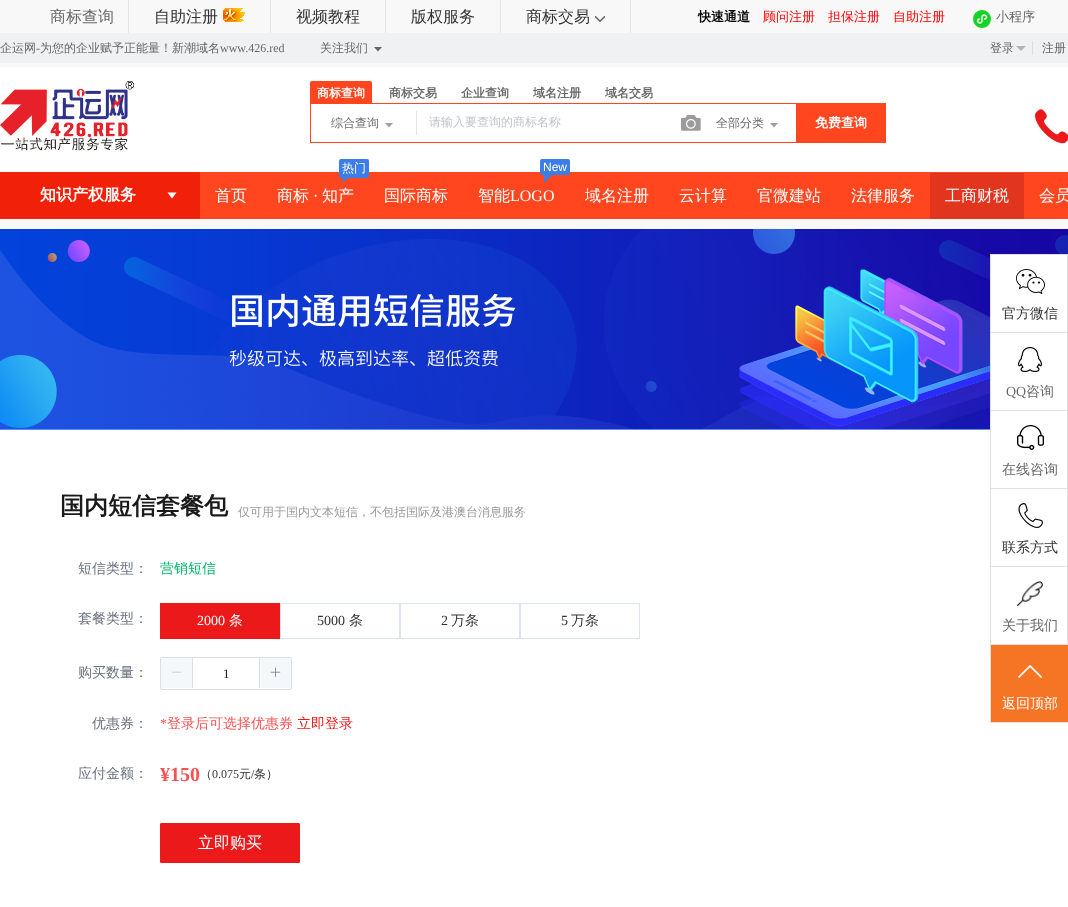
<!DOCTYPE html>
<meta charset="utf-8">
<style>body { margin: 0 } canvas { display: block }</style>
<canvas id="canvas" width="1068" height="907"></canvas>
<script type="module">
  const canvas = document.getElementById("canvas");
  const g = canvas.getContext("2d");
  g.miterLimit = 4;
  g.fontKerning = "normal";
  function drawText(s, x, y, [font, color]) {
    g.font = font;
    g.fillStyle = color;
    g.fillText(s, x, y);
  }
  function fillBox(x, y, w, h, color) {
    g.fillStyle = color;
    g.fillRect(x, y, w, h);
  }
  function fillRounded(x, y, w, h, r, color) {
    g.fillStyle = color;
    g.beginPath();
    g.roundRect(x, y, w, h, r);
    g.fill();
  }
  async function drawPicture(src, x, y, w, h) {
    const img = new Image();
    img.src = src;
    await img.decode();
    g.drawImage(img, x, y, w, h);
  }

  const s1 = ["500 16px WenQuanYi Zen Hei", "#686868"];
  const s2 = ["500 16px WenQuanYi Zen Hei", "#333333"];
  const s3 = ["bold 13px WenQuanYi Zen Hei", "#000000"];
  const s4 = ["500 13px WenQuanYi Zen Hei", "#FF0000"];
  const s5 = ["500 13px WenQuanYi Zen Hei", "#686868"];
  const s6 = ["500 12px WenQuanYi Zen Hei", "#686868"];
  const s7 = ["12px Liberation Serif", "#686868"];
  const s8 = ["bold 12px WenQuanYi Zen Hei", "#FFFFFF"];
  const s9 = ["bold 12px WenQuanYi Zen Hei", "#686868"];
  const s10 = ["500 12px WenQuanYi Zen Hei", "#C0C4CC"];
  const s11 = ["bold 13px WenQuanYi Zen Hei", "#FFFFFF"];
  const s12 = ["bold 16px WenQuanYi Zen Hei", "#FFFFFF"];
  const s13 = ["500 16px WenQuanYi Zen Hei", "#FFFFFF"];
  const s14 = ["500 12px WenQuanYi Zen Hei", "#FFFFFF"];
  const s15 = ["16px Liberation Serif", "#FFFFFF"];
  const s16 = ["12px Liberation Sans", "#FFFFFF"];
  const s17 = ["bold 24px WenQuanYi Zen Hei", "#1A1A1A"];
  const s18 = ["500 12px WenQuanYi Zen Hei", "#999999"];
  const s19 = ["500 14px WenQuanYi Zen Hei", "#6A7181"];
  const s20 = ["500 14px WenQuanYi Zen Hei", "#02B369"];
  const s21 = ["14px Liberation Serif", "#FFFFFF"];
  const s22 = ["500 14px WenQuanYi Zen Hei", "#FFFFFF"];
  const s23 = ["14px Liberation Serif", "#333333"];
  const s24 = ["500 14px WenQuanYi Zen Hei", "#333333"];
  const s25 = ["13px Liberation Serif", "#1A1A1A"];
  const s26 = ["14px Liberation Serif", "#F85252"];
  const s27 = ["500 14px WenQuanYi Zen Hei", "#F85252"];
  const s28 = ["500 14px WenQuanYi Zen Hei", "#EB1919"];
  const s29 = ["bold 20px Liberation Serif", "#F85252"];
  const s30 = ["500 12px WenQuanYi Zen Hei", "#333333"];
  const s31 = ["12px Liberation Serif", "#333333"];
  const s32 = ["14px Liberation Serif", "#686868"];
  const s33 = ["500 14px WenQuanYi Zen Hei", "#686868"];

  fillBox(0, 0, 1068, 907, "#F8F8F8");
  drawText("商标查询", 50, 22, s1);
  fillBox(270, 0, 1, 33, "#E5E5E5");
  fillBox(128, 0, 1, 33, "#E5E5E5");
  drawText("自助注册", 154, 22, s2);
  await drawPicture("pic1.png", 223, 8, 22, 14);
  fillBox(385, 0, 1, 33, "#E5E5E5");
  drawText("视频教程", 296, 22, s2);
  fillBox(500, 0, 1, 33, "#E5E5E5");
  drawText("版权服务", 411, 22, s2);
  fillBox(630, 0, 1, 33, "#E5E5E5");
  drawText("商标交易", 526, 22, s2);
  await drawPicture("pic2.png", 595, 16, 10, 6);
  drawText("快速通道", 698, 21, s3);
  drawText("顾问注册", 763, 21, s4);
  drawText("担保注册", 828, 21, s4);
  drawText("自助注册", 893, 21, s4);
  await drawPicture("pic3.png", 973, 10, 18, 18);
  drawText("小程序", 996, 21, s5);
  fillBox(0, 33, 1068, 30, "#F0F1F3");
  drawText("企运网", 0, 52, s6);
  drawText("-", 36, 52, s7);
  drawText("为您的企业赋予正能量！新潮域名", 40, 52, s6);
  drawText("www.426.red", 220, 52, s7);
  drawText("关注我们", 320, 52, s6);
  g.fillStyle = "#666666";
  g.beginPath();
  g.moveTo(374, 47);
  g.lineTo(382, 47);
  g.lineTo(378, 51.5);
  g.closePath();
  g.fill();
  drawText("登录", 990, 52, s6);
  g.fillStyle = "#B3B3B3";
  g.beginPath();
  g.moveTo(1016, 46);
  g.lineTo(1026, 46);
  g.lineTo(1021, 51);
  g.closePath();
  g.fill();
  fillBox(1032, 41, 1, 14, "#DDDDDD");
  drawText("注册", 1042, 52, s6);
  fillBox(0, 67, 1068, 105, "#FFFFFF");
  await drawPicture("pic4.png", 0, 81, 134, 70);
  g.fillStyle = "#FF461F";
  g.beginPath();
  g.roundRect(310, 81, 62, 22, [2, 2, 0, 0]);
  g.fill();
  drawText("商标查询", 317, 97, s8);
  drawText("商标交易", 389, 97, s9);
  drawText("企业查询", 461, 97, s9);
  drawText("域名注册", 533, 97, s9);
  drawText("域名交易", 605, 97, s9);
  g.strokeStyle = "#FF461F";
  g.strokeRect(310.5, 103.5, 575, 39);
  fillBox(416, 111, 1, 24, "#E0E3E8");
  drawText("综合查询", 331, 127, s6);
  g.fillStyle = "#9DA0A6";
  g.beginPath();
  g.moveTo(385, 123);
  g.lineTo(393, 123);
  g.lineTo(389, 127.5);
  g.closePath();
  g.fill();
  drawText("请输入要查询的商标名称", 429, 126, s10);
  await drawPicture("pic5.png", 681, 115, 20, 16);
  drawText("全部分类", 716, 127, s6);
  g.fillStyle = "#9DA0A6";
  g.beginPath();
  g.moveTo(770, 123);
  g.lineTo(778, 123);
  g.lineTo(774, 127.5);
  g.closePath();
  g.fill();
  fillBox(796, 104, 89, 38, "#FF461F");
  drawText("免费查询", 815, 127, s11);
  await drawPicture("pic6.png", 1035, 109, 33, 35);
  fillBox(200, 172, 868, 47, "#FF461F");
  fillBox(0, 172, 200, 47, "#F02108");
  drawText("知识产权服务", 40, 200, s12);
  g.beginPath();
  g.moveTo(167.5, 192.5);
  g.lineTo(176.5, 192.5);
  g.lineTo(172, 198.5);
  g.closePath();
  g.fill();
  drawText("首页", 215, 201, s13);
  fillRounded(339, 159, 30, 19, 2, "#3C7EE5");
  drawText("热门", 342, 172, s14);
  g.fillStyle = "#3C7EE5";
  g.beginPath();
  g.moveTo(343, 175);
  g.lineTo(351, 175);
  g.lineTo(343, 183);
  g.closePath();
  g.fill();
  drawText("商标", 277, 201, s13);
  drawText("·", 313, 201, s15);
  drawText("知产", 322, 201, s13);
  drawText("国际商标", 384, 201, s13);
  fillRounded(540, 159, 30, 16, 2, "#3C7EE5");
  drawText("New", 543, 171, s16);
  g.fillStyle = "#3C7EE5";
  g.beginPath();
  g.moveTo(544, 175);
  g.lineTo(552, 175);
  g.lineTo(544, 183);
  g.closePath();
  g.fill();
  drawText("智能", 478, 201, s13);
  drawText("LOGO", 510, 201, s15);
  drawText("域名注册", 585, 201, s13);
  drawText("云计算", 679, 201, s13);
  drawText("官微建站", 757, 201, s13);
  drawText("法律服务", 851, 201, s13);
  fillBox(930, 173, 94, 46, "#E1351E");
  drawText("工商财税", 945, 201, s13);
  drawText("会员", 1039, 201, s13);
  await drawPicture("pic7.png", 0, 229, 1068, 201);
  fillBox(0, 430, 1068, 477, "#FFFFFF");
  drawText("国内短信套餐包", 60, 514, s17);
  drawText("仅可用于国内文本短信，不包括国际及港澳台消息服务", 238, 516, s18);
  drawText("短信类型：", 78, 573, s19);
  drawText("营销短信", 160, 573, s20);
  drawText("套餐类型：", 78, 623, s19);
  fillBox(160, 603, 120, 36, "#EB1919");
  drawText("2000", 197, 625, s21);
  drawText("条", 229, 625, s22);
  g.strokeStyle = "#DFE3F1";
  g.strokeRect(280.5, 603.5, 119, 35);
  drawText("5000", 317, 625, s23);
  drawText("条", 349, 625, s24);
  g.strokeRect(400.5, 603.5, 119, 35);
  drawText("2", 441, 625, s23);
  drawText("万条", 451, 625, s24);
  g.strokeRect(520.5, 603.5, 119, 35);
  drawText("5", 561, 625, s23);
  drawText("万条", 571, 625, s24);
  drawText("购买数量：", 78, 677, s19);
  g.beginPath();
  g.roundRect(160.5, 657.5, 131, 32, 1.5);
  g.strokeStyle = "#DCDFE6";
  g.stroke();
  g.fillStyle = "#F4F8FB";
  g.beginPath();
  g.roundRect(161, 658, 32, 30, [2, 0, 0, 2]);
  g.fill();
  fillBox(192, 658, 1, 30, "#DCDFE6");
  await drawPicture("pic8.png", 171, 671, 11, 2);
  drawText("1", 223, 678, s25);
  g.fillStyle = "#F4F8FB";
  g.beginPath();
  g.roundRect(259, 658, 32, 30, [0, 2, 2, 0]);
  g.fill();
  fillBox(259, 658, 1, 30, "#DCDFE6");
  await drawPicture("pic9.png", 270, 667, 11, 10);
  drawText("优惠券：", 92, 728, s19);
  drawText("*", 160, 728, s26);
  drawText("登录后可选择优惠券", 167, 728, s27);
  drawText("立即登录", 297, 728, s28);
  drawText("应付金额：", 78, 778, s19);
  drawText("¥150", 160, 781, s29);
  drawText("（", 200, 778, s30);
  drawText("0.075", 212, 778, s31);
  drawText("元", 239, 778, s30);
  drawText("/", 251, 778, s31);
  drawText("条）", 254, 778, s30);
  g.fillStyle = "#EB1919";
  g.beginPath();
  g.roundRect(160.5, 823.5, 139, 39, 0.5);
  g.fill();
  g.strokeStyle = "#EB1919";
  g.stroke();
  drawText("立即购买", 198, 848, s13);
  fillBox(991, 255, 76, 175, "#FFFFFF");
  fillBox(990, 254, 78, 1, "#E0E0E0");
  fillBox(1067, 254, 1, 390, "#E0E0E0");
  fillBox(990, 254, 1, 469, "#E0E0E0");
  fillBox(991, 332, 77, 1, "#E0E0E0");
  await drawPicture("pic10.png", 1016, 269, 29, 25);
  drawText("官方微信", 1002, 318, s24);
  fillBox(991, 410, 77, 1, "#E0E0E0");
  await drawPicture("pic11.png", 1018, 347, 24, 25);
  drawText("QQ", 1006, 396, s32);
  drawText("咨询", 1026, 396, s33);
  fillBox(991, 488, 77, 1, "#E0E0E0");
  await drawPicture("pic12.png", 1017, 425, 27, 25);
  drawText("在线咨询", 1002, 474, s33);
  fillBox(991, 566, 77, 1, "#E0E0E0");
  await drawPicture("pic13.png", 1018, 503, 25, 25);
  drawText("联系方式", 1002, 552, s24);
  fillBox(991, 644, 77, 1, "#E0E0E0");
  await drawPicture("pic14.png", 1017, 581, 26, 25);
  drawText("关于我们", 1002, 630, s33);
  fillBox(991, 645, 77, 77, "#F67524");
  fillBox(991, 722, 77, 1, "#E0E0E0");
  await drawPicture("pic15.png", 1018, 665, 24, 13);
  drawText("返回顶部", 1002, 708, s22);
</script>
